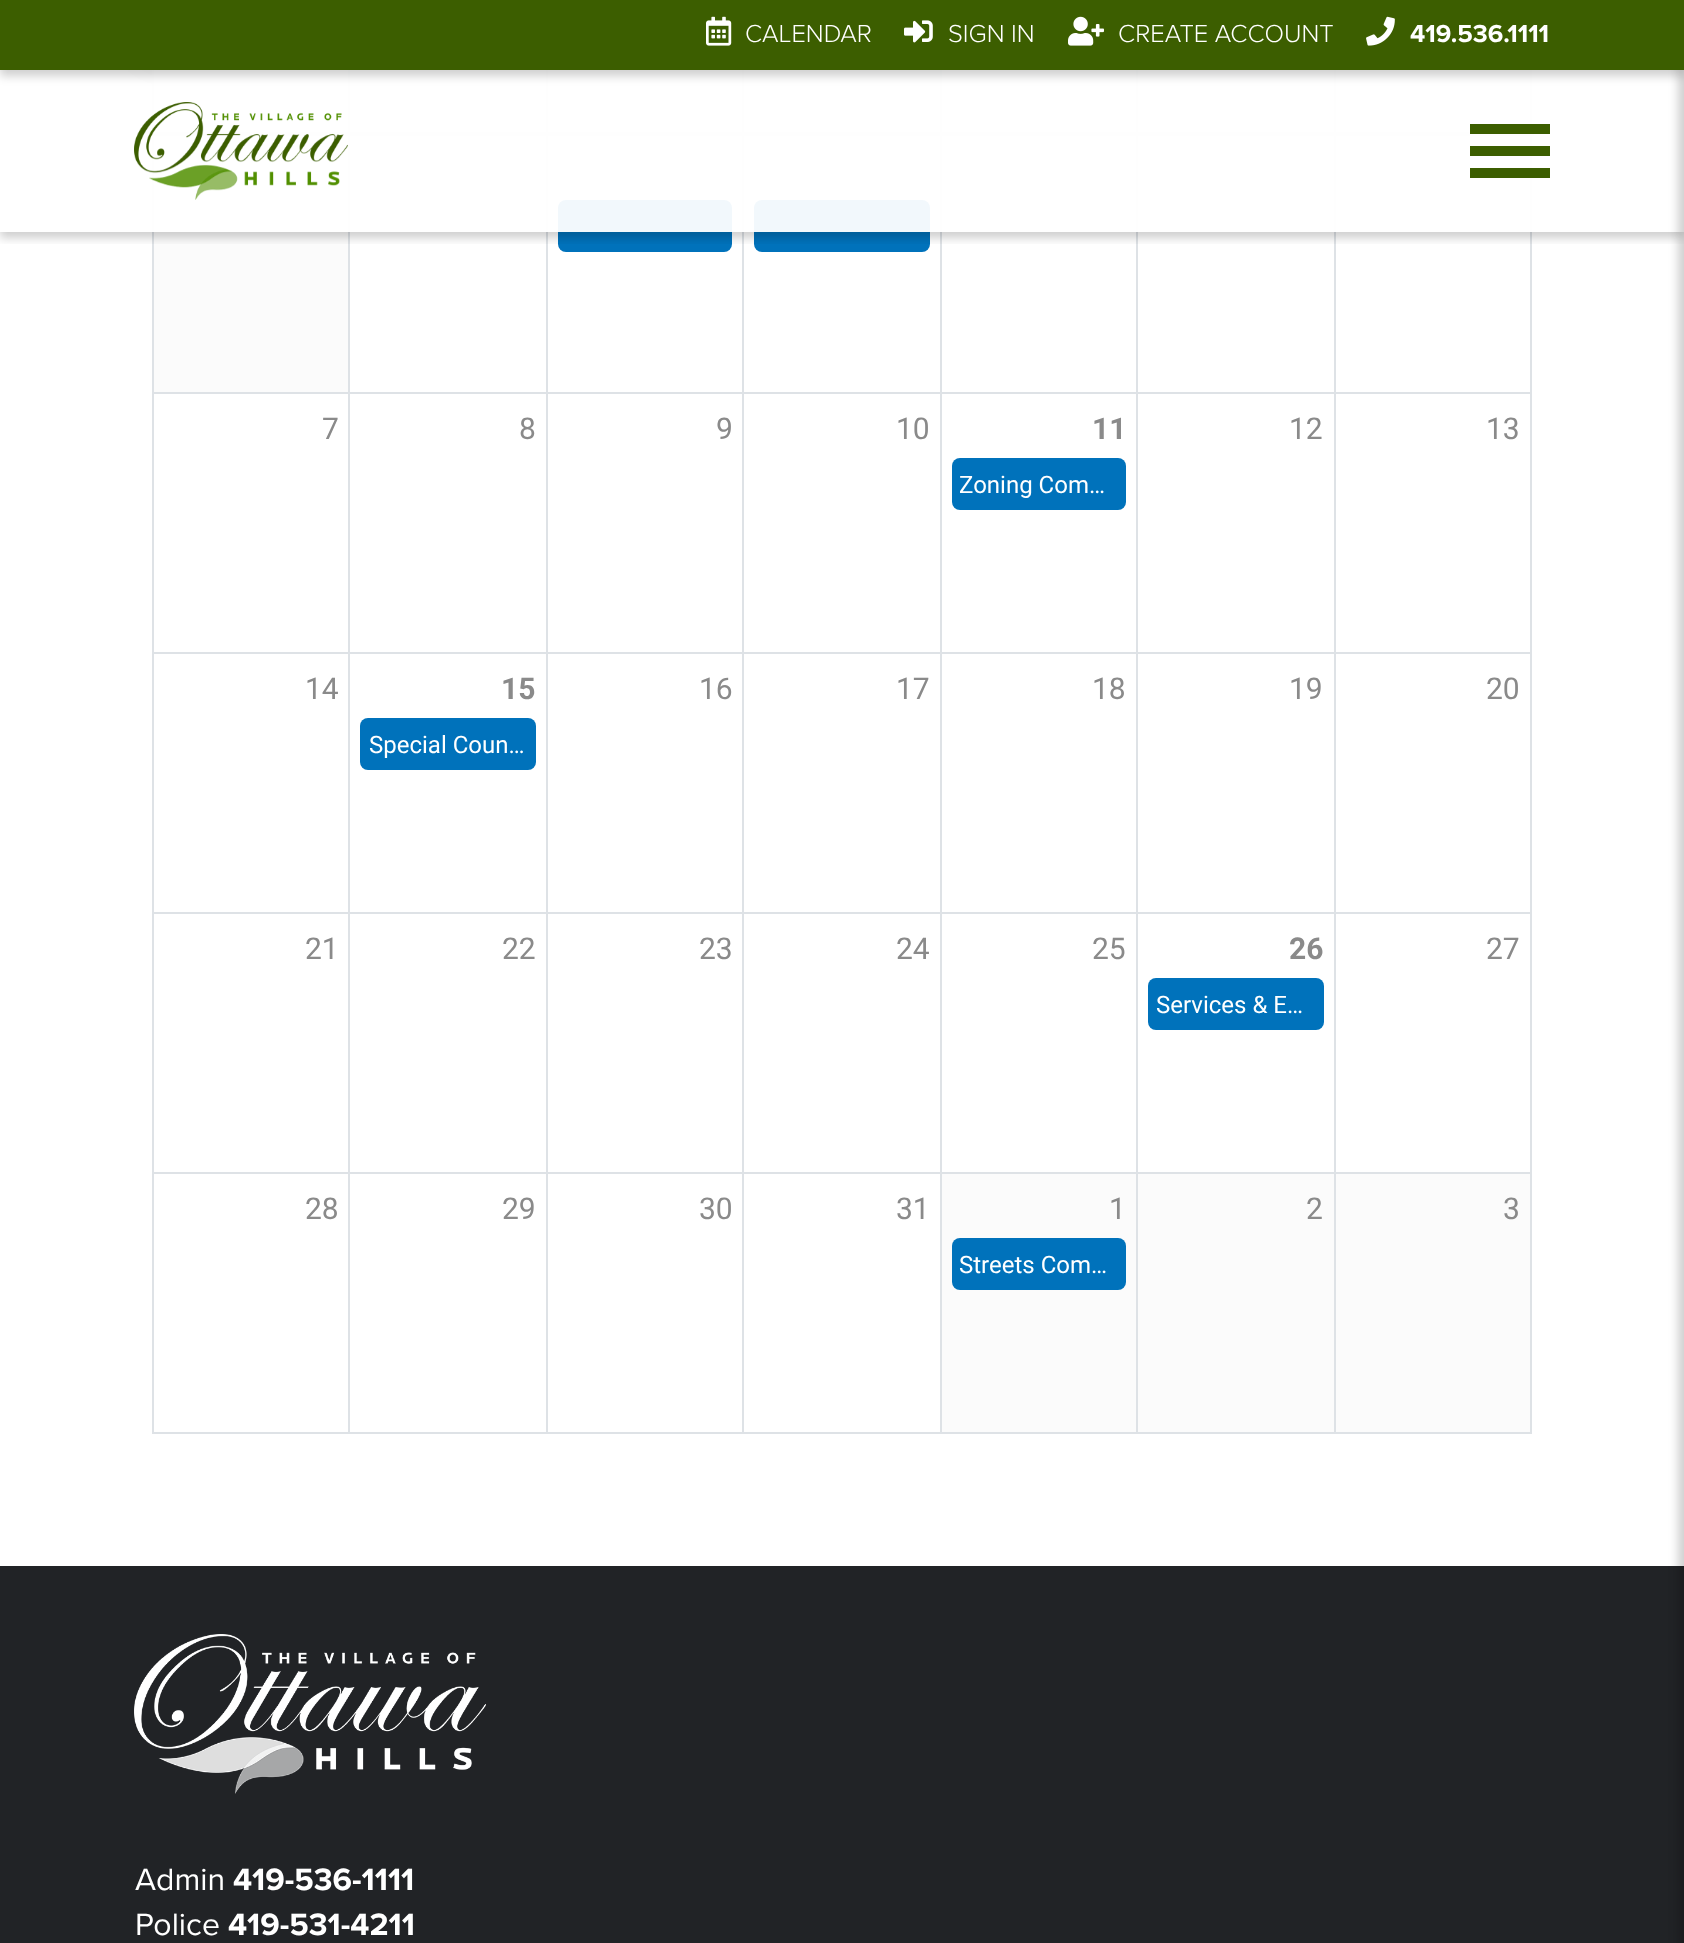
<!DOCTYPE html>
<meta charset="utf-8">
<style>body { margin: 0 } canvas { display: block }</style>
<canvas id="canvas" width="1684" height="1943"></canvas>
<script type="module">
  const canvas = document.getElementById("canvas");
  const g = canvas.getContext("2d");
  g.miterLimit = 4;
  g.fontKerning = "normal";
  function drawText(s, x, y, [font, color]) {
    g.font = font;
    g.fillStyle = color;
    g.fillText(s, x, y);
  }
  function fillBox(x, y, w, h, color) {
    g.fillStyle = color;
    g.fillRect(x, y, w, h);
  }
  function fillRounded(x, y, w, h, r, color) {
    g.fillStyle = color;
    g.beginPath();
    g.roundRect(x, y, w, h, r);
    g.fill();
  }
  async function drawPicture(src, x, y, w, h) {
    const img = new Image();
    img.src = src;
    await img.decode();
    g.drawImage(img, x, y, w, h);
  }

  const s1 = ["300 25.5px Proxima Nova", "#FFFFFF"];
  const s2 = ["bold 25.5px Proxima Nova", "#FFFFFF"];
  const s3 = ["30px Roboto", "#8A8A8A"];
  const s4 = ["bold 30px Roboto", "#8A8A8A"];
  const s5 = ["24px Roboto", "#FFFFFF"];
  const s6 = ["32px Proxima Nova", "#FFFFFF"];
  const s7 = ["bold 32px Proxima Nova", "#FFFFFF"];

  fillBox(0, 0, 1684, 1943, "#FFFFFF");
  fillBox(1530, 62, 2, 1372, "#DEE2E6");
  fillBox(152, 1432, 1380, 2, "#DEE2E6");
  fillBox(152, 62, 2, 1372, "#DEE2E6");
  fillBox(1334, 392, 198, 2, "#DEE2E6");
  fillBox(1334, 652, 198, 2, "#DEE2E6");
  fillBox(1334, 912, 198, 2, "#DEE2E6");
  fillBox(1334, 1172, 198, 2, "#DEE2E6");
  fillBox(1334, 1172, 2, 262, "#DEE2E6");
  fillBox(1136, 1172, 200, 2, "#DEE2E6");
  fillBox(1334, 912, 2, 262, "#DEE2E6");
  fillBox(1136, 912, 200, 2, "#DEE2E6");
  fillBox(1334, 652, 2, 262, "#DEE2E6");
  fillBox(1136, 652, 200, 2, "#DEE2E6");
  fillBox(1334, 392, 2, 262, "#DEE2E6");
  fillBox(1136, 392, 200, 2, "#DEE2E6");
  fillBox(1136, 1172, 2, 262, "#DEE2E6");
  fillBox(940, 1172, 198, 2, "#DEE2E6");
  fillBox(1136, 912, 2, 262, "#DEE2E6");
  fillBox(940, 912, 198, 2, "#DEE2E6");
  fillBox(1136, 652, 2, 262, "#DEE2E6");
  fillBox(940, 652, 198, 2, "#DEE2E6");
  fillBox(1136, 392, 2, 262, "#DEE2E6");
  fillBox(940, 392, 198, 2, "#DEE2E6");
  fillBox(940, 1172, 2, 262, "#DEE2E6");
  fillBox(742, 1172, 200, 2, "#DEE2E6");
  fillBox(940, 912, 2, 262, "#DEE2E6");
  fillBox(742, 912, 200, 2, "#DEE2E6");
  fillBox(940, 652, 2, 262, "#DEE2E6");
  fillBox(742, 652, 200, 2, "#DEE2E6");
  fillBox(940, 392, 2, 262, "#DEE2E6");
  fillBox(742, 392, 200, 2, "#DEE2E6");
  fillBox(742, 1172, 2, 262, "#DEE2E6");
  fillBox(546, 1172, 198, 2, "#DEE2E6");
  fillBox(742, 912, 2, 262, "#DEE2E6");
  fillBox(546, 912, 198, 2, "#DEE2E6");
  fillBox(742, 652, 2, 262, "#DEE2E6");
  fillBox(546, 652, 198, 2, "#DEE2E6");
  fillBox(742, 392, 2, 262, "#DEE2E6");
  fillBox(546, 392, 198, 2, "#DEE2E6");
  fillBox(546, 1172, 2, 262, "#DEE2E6");
  fillBox(348, 1172, 200, 2, "#DEE2E6");
  fillBox(546, 912, 2, 262, "#DEE2E6");
  fillBox(348, 912, 200, 2, "#DEE2E6");
  fillBox(546, 652, 2, 262, "#DEE2E6");
  fillBox(348, 652, 200, 2, "#DEE2E6");
  fillBox(546, 392, 2, 262, "#DEE2E6");
  fillBox(348, 392, 200, 2, "#DEE2E6");
  fillBox(348, 1172, 2, 262, "#DEE2E6");
  fillBox(152, 1172, 198, 2, "#DEE2E6");
  fillBox(348, 912, 2, 262, "#DEE2E6");
  fillBox(152, 912, 198, 2, "#DEE2E6");
  fillBox(348, 652, 2, 262, "#DEE2E6");
  fillBox(152, 652, 198, 2, "#DEE2E6");
  fillBox(348, 392, 2, 262, "#DEE2E6");
  fillBox(152, 392, 198, 2, "#DEE2E6");
  fillBox(348, 62, 2, 332, "#DEE2E6");
  fillBox(546, 62, 2, 332, "#DEE2E6");
  fillBox(742, 62, 2, 332, "#DEE2E6");
  fillBox(940, 62, 2, 332, "#DEE2E6");
  fillBox(1136, 62, 2, 332, "#DEE2E6");
  fillBox(1334, 62, 2, 332, "#DEE2E6");
  fillBox(152, 132, 1382, 4, "#DEE2E6");
  fillBox(154, 136, 194, 256, "#FBFBFB");
  fillRounded(558, 200, 174, 52, 8, "#0072BB");
  fillRounded(754, 200, 176, 52, 8, "#0072BB");
  g.save();
  g.beginPath();
  g.rect(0, 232, 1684, 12);
  g.clip();
  g.fillStyle = "rgba(0, 0, 0, 0.19)";
  g.filter = "blur(5px)";
  g.beginPath();
  g.rect(0, 6, 1684, 232);
  g.fill();
  g.filter = "none";
  g.restore();
  g.fillStyle = "rgba(0, 0, 0, 0.19)";
  g.filter = "blur(20px)";
  g.beginPath();
  g.roundRect(152, -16, 102, 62, 8);
  g.fill();
  g.filter = "none";
  g.filter = "blur(20px)";
  g.beginPath();
  g.roundRect(262, -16, 158, 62, 8);
  g.fill();
  g.filter = "none";
  g.filter = "blur(20px)";
  g.beginPath();
  g.roundRect(768, -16, 154, 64, 8);
  g.fill();
  g.filter = "none";
  g.filter = "blur(20px)";
  g.beginPath();
  g.roundRect(938, -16, 166, 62, 8);
  g.fill();
  g.filter = "none";
  g.filter = "blur(20px)";
  g.beginPath();
  g.roundRect(1120, -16, 160, 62, 8);
  g.fill();
  g.filter = "none";
  fillBox(152, 70, 1382, 162, "rgba(255, 255, 255, 0.95)");
  await drawPicture("pic1.png", 134, 102, 214, 98);
  fillBox(1470, 124, 80, 10, "#3C5E00");
  fillBox(1470, 146, 80, 10, "#3C5E00");
  fillBox(1470, 168, 80, 10, "#3C5E00");
  fillBox(0, 1566, 1684, 377, "#212326");
  g.fillStyle = "rgba(0, 0, 0, 0.19)";
  g.filter = "blur(5px)";
  g.beginPath();
  g.rect(1678, 6, 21, 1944);
  g.fill();
  g.filter = "none";
  g.filter = "blur(5px)";
  g.beginPath();
  g.rect(0, 6, 1684, 70);
  g.fill();
  g.filter = "none";
  fillBox(0, 0, 1684, 70, "#3C5E00");
  await drawPicture("pic2.png", 706, 16, 26, 30);
  drawText("CALENDAR", 745, 42, s1);
  await drawPicture("pic3.png", 904, 20, 29, 23);
  drawText("SIGN IN", 948, 42, s1);
  await drawPicture("pic4.png", 1068, 16, 36, 30);
  drawText("CREATE ACCOUNT", 1118, 42, s1);
  await drawPicture("pic5.png", 1366, 16, 29, 30);
  drawText("419.536.1111", 1410, 42, s2);
  drawText("7", 322, 439, s3);
  drawText("8", 519, 439, s3);
  drawText("9", 716, 439, s3);
  drawText("10", 896, 439, s3);
  drawText("11", 1092, 439, s4);
  fillRounded(952, 458, 174, 52, 8, "#0072BB");
  drawText("Zoning Com…", 959, 493, s5);
  drawText("12", 1289, 439, s3);
  drawText("13", 1486, 439, s3);
  drawText("14", 305, 699, s3);
  drawText("15", 501, 699, s4);
  fillRounded(360, 718, 176, 52, 8, "#0072BB");
  drawText("Special Coun…", 369, 753, s5);
  drawText("16", 699, 699, s3);
  drawText("17", 896, 699, s3);
  drawText("18", 1092, 699, s3);
  drawText("19", 1289, 699, s3);
  drawText("20", 1486, 699, s3);
  drawText("21", 305, 959, s3);
  drawText("22", 502, 959, s3);
  drawText("23", 699, 959, s3);
  drawText("24", 896, 959, s3);
  drawText("25", 1092, 959, s3);
  drawText("26", 1289, 959, s4);
  fillRounded(1148, 978, 176, 52, 8, "#0072BB");
  drawText("Services & E…", 1156, 1013, s5);
  drawText("27", 1486, 959, s3);
  drawText("28", 305, 1219, s3);
  drawText("29", 502, 1219, s3);
  drawText("30", 699, 1219, s3);
  drawText("31", 896, 1219, s3);
  fillBox(942, 1174, 194, 258, "#FBFBFB");
  drawText("1", 1109, 1219, s3);
  fillRounded(952, 1238, 174, 52, 8, "#0072BB");
  drawText("Streets Com…", 959, 1273, s5);
  fillBox(1138, 1174, 196, 258, "#FBFBFB");
  drawText("2", 1306, 1219, s3);
  fillBox(1336, 1174, 194, 258, "#FBFBFB");
  drawText("3", 1503, 1219, s3);
  await drawPicture("pic6.png", 134, 1634, 352, 160);
  drawText("Admin", 135, 1890, s6);
  drawText("419-536-1111", 233, 1890, s7);
  drawText("Police", 135, 1935, s6);
  drawText("419-531-4211", 228, 1935, s7);
</script>
